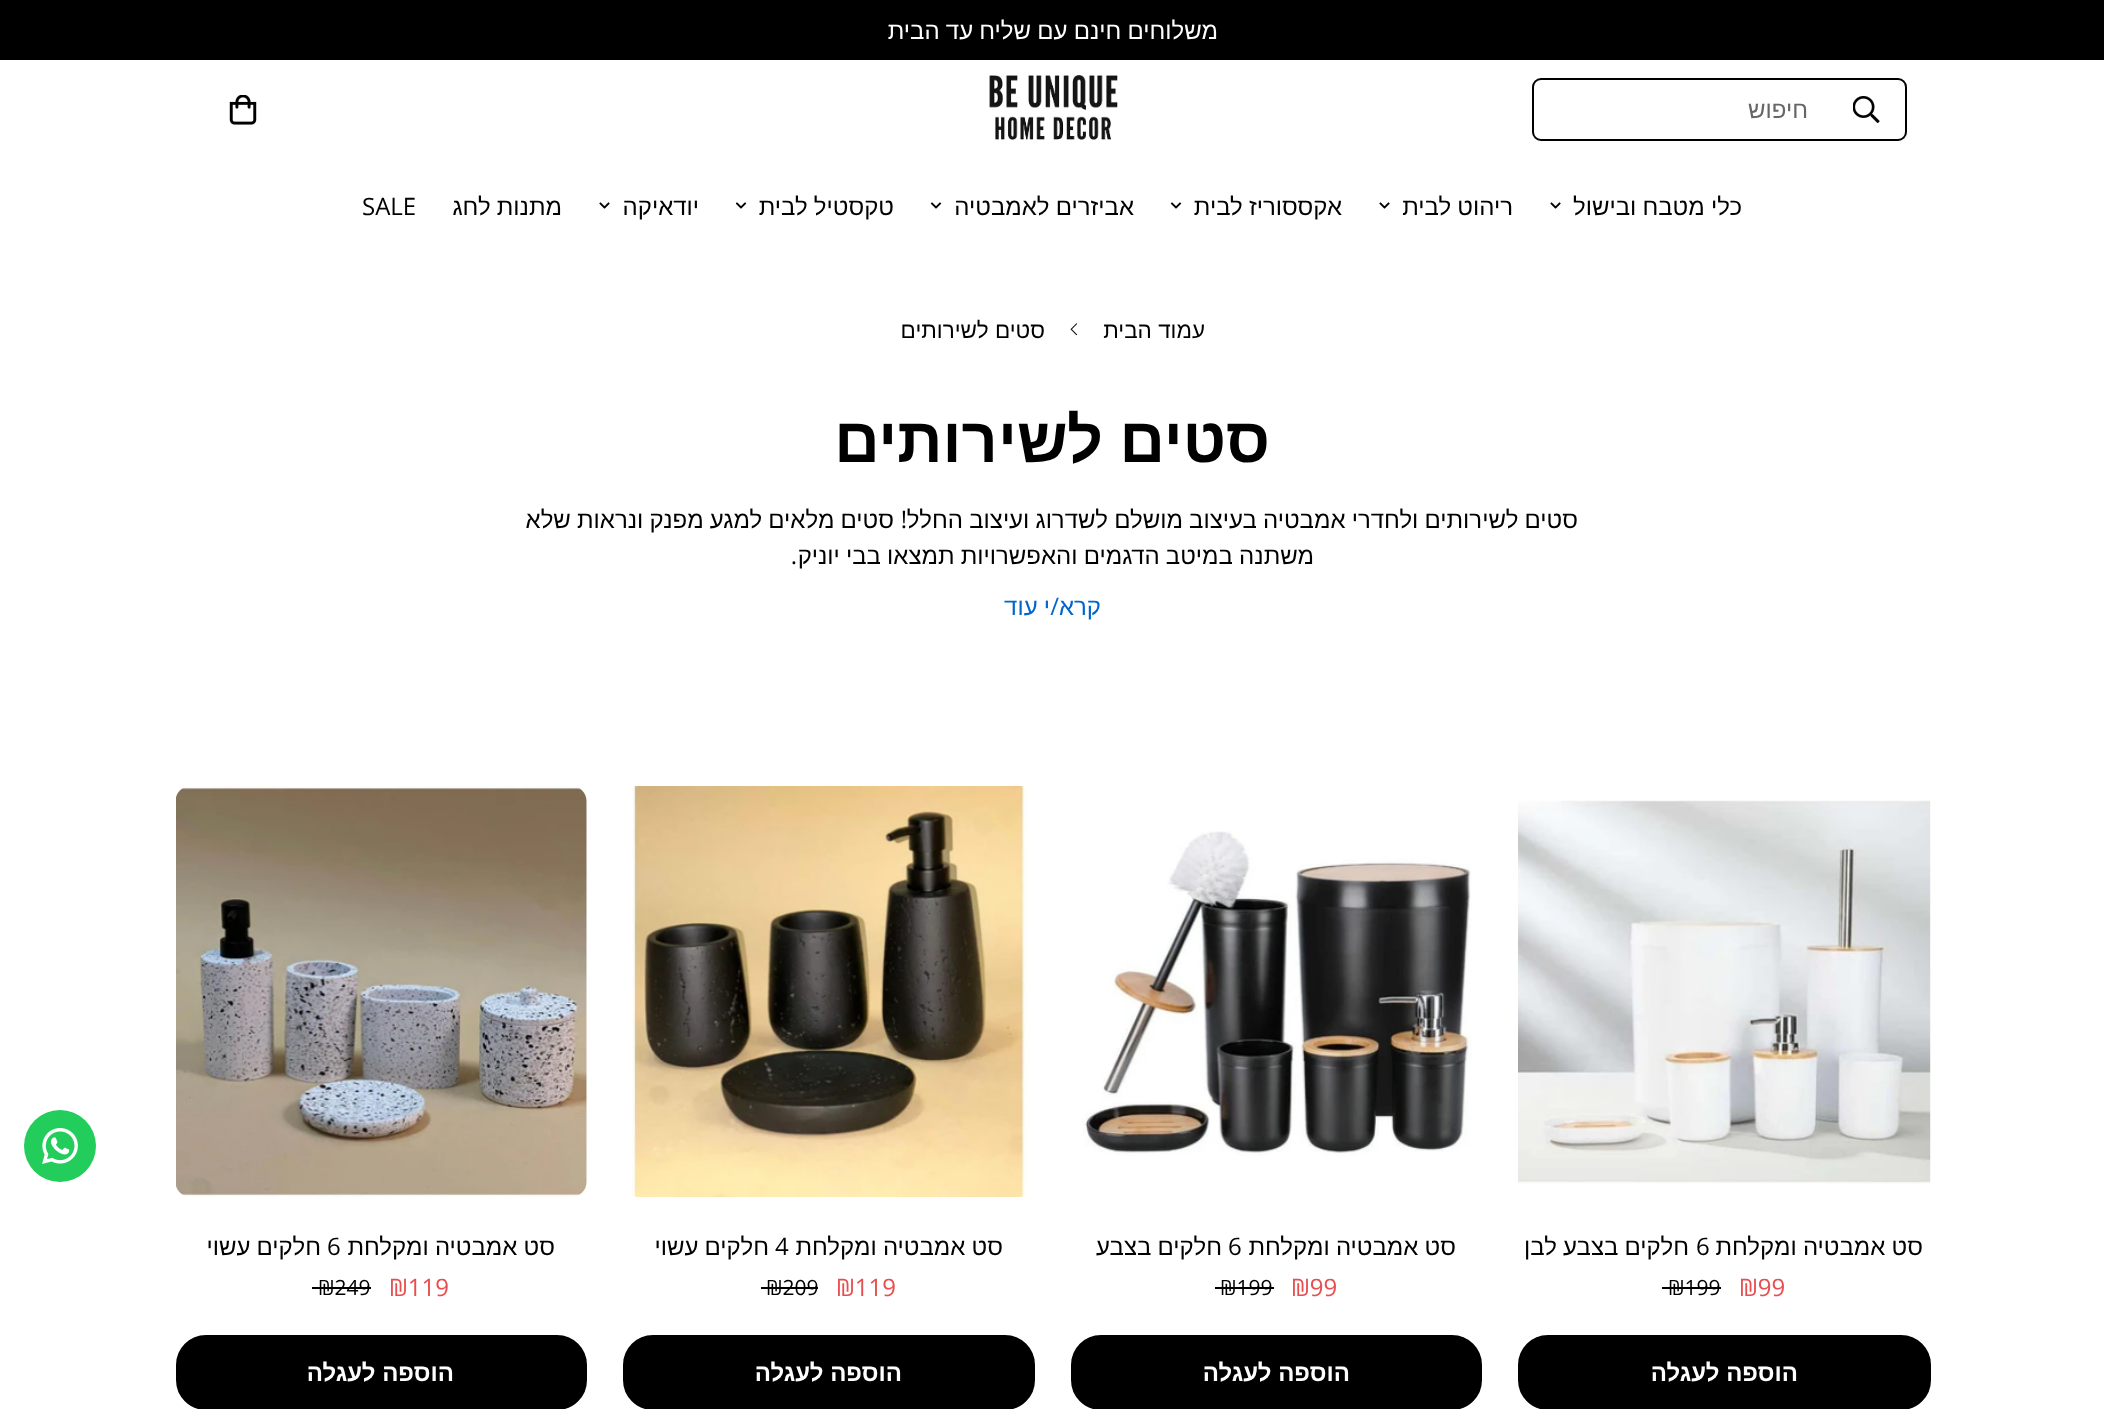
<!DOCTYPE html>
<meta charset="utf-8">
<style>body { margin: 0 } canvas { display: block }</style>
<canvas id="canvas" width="2104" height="1409"></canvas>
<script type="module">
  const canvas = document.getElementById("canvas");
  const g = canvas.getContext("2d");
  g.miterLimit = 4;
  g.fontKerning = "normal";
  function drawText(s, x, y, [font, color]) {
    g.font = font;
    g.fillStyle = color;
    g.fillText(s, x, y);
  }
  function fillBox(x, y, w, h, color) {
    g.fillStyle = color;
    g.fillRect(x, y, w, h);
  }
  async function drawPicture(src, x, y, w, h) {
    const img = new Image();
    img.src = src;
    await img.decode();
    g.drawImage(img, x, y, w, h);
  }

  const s1 = ["24px Liberation Sans", "#FFFFFF"];
  const s2 = ["24px Liberation Sans", "#666666"];
  const s3 = ["24px Liberation Sans", "#000000"];
  const s4 = ["24px Open Sans", "#000000"];
  const s5 = ["22.5px Liberation Sans", "#000000"];
  const s6 = ["bold 63px Liberation Sans", "#000000"];
  const s7 = ["24px Liberation Sans", "#0066CC"];
  const s8 = ["24px Open Sans", "#0066CC"];
  const s9 = ["24px Open Sans", "#E84E4E"];
  const s10 = ["21px Open Sans", "#000000"];
  const s11 = ["bold 24px Liberation Sans", "#FFFFFF"];

  fillBox(0, 0, 2104, 1409, "#FFFFFF");
  fillBox(0, 0, 2104, 60, "#000000");
  g.wordSpacing = "-0.5px";
  g.direction = "rtl";
  drawText("משלוחים חינם עם שליח עד הבית", 1218, 39, s1);
  g.beginPath();
  g.roundRect(1533, 79, 373, 61, 8);
  g.strokeStyle = "#000000";
  g.lineWidth = 2;
  g.stroke();
  await drawPicture("pic1.png", 1853, 96, 27, 27);
  g.wordSpacing = "0px";
  drawText("חיפוש", 1808, 118, s2);
  await drawPicture("pic2.png", 989, 75, 129, 65);
  await drawPicture("pic3.png", 229, 95, 28, 30);
  g.wordSpacing = "-0.5px";
  drawText("כלי מטבח ובישול", 1742, 215, s3);
  await drawPicture("pic4.png", 1550, 202, 11, 7);
  drawText("ריהוט לבית", 1513, 215, s3);
  await drawPicture("pic4.png", 1379, 202, 11, 7);
  drawText("אקססוריז לבית", 1342, 215, s3);
  await drawPicture("pic5.png", 1170, 202, 12, 7);
  drawText("אביזרים לאמבטיה", 1134, 215, s3);
  await drawPicture("pic5.png", 930, 202, 12, 7);
  drawText("טקסטיל לבית", 894, 215, s3);
  await drawPicture("pic5.png", 735, 202, 12, 7);
  g.wordSpacing = "0px";
  drawText("יודאיקה", 699, 215, s3);
  await drawPicture("pic4.png", 599, 202, 11, 7);
  g.wordSpacing = "-0.5px";
  drawText("מתנות לחג", 562, 215, s3);
  g.wordSpacing = "0px";
  g.direction = "ltr";
  drawText("SALE", 362, 215, s4);
  g.direction = "rtl";
  drawText("עמוד הבית", 1205, 338, s5);
  await drawPicture("pic6.png", 1070, 323, 8, 13);
  drawText("סטים לשירותים", 1045, 338, s5);
  g.wordSpacing = "-1px";
  drawText("סטים לשירותים", 1270, 462, s6);
  g.wordSpacing = "-0.5px";
  drawText("סטים לשירותים ולחדרי אמבטיה בעיצוב מושלם לשדרוג ועיצוב החלל", 1578, 528, s3);
  g.wordSpacing = "0px";
  drawText("!", 907, 528, s4);
  g.wordSpacing = "-0.5px";
  drawText("סטים מלאים למגע מפנק ונראות שלא", 894, 528, s3);
  drawText("משתנה במיטב הדגמים והאפשרויות תמצאו בבי יוניק", 1314, 564, s3);
  g.wordSpacing = "0px";
  drawText(".", 797, 564, s4);
  drawText("קרא", 1101, 615, s7);
  drawText("/", 1059, 615, s8);
  g.wordSpacing = "-0.5px";
  drawText("י עוד", 1050, 615, s7);
  await drawPicture("pic7.png", 1518, 800, 413, 384);
  drawText("סט אמבטיה ומקלחת", 1923, 1255, s3);
  g.wordSpacing = "0px";
  g.direction = "ltr";
  drawText("6", 1696, 1255, s4);
  g.wordSpacing = "-0.5px";
  g.direction = "rtl";
  drawText("חלקים בצבע לבן", 1689, 1255, s3);
  g.wordSpacing = "0px";
  g.direction = "ltr";
  drawText("₪99", 1739, 1296, s9);
  drawText("₪199", 1668, 1295, s10);
  fillBox(1662, 1287, 59, 2, "#000000");
  g.beginPath();
  g.roundRect(1519, 1336, 411, 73, 29);
  g.fill();
  g.stroke();
  g.direction = "rtl";
  drawText("הוספה לעגלה", 1798, 1381, s11);
  await drawPicture("pic8.png", 1082, 831, 390, 325);
  g.wordSpacing = "-0.5px";
  drawText("סט אמבטיה ומקלחת", 1456, 1255, s3);
  g.wordSpacing = "0px";
  g.direction = "ltr";
  drawText("6", 1228, 1255, s4);
  g.wordSpacing = "-0.5px";
  g.direction = "rtl";
  drawText("חלקים בצבע", 1222, 1255, s3);
  g.wordSpacing = "0px";
  g.direction = "ltr";
  drawText("₪99", 1291, 1296, s9);
  drawText("₪199", 1220, 1295, s10);
  fillBox(1215, 1287, 59, 2, "#000000");
  g.beginPath();
  g.roundRect(1072, 1336, 409, 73, 29);
  g.fill();
  g.stroke();
  g.direction = "rtl";
  drawText("הוספה לעגלה", 1350, 1381, s11);
  await drawPicture("pic9.png", 632, 786, 398, 411);
  g.wordSpacing = "-0.5px";
  drawText("סט אמבטיה ומקלחת", 1003, 1255, s3);
  g.wordSpacing = "0px";
  g.direction = "ltr";
  drawText("4", 775, 1255, s4);
  g.wordSpacing = "-0.5px";
  g.direction = "rtl";
  drawText("חלקים עשוי", 769, 1255, s3);
  g.wordSpacing = "0px";
  g.direction = "ltr";
  drawText("₪119", 836, 1296, s9);
  drawText("₪209", 766, 1295, s10);
  fillBox(761, 1287, 57, 2, "#000000");
  g.beginPath();
  g.roundRect(624, 1336, 410, 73, 29);
  g.fill();
  g.stroke();
  g.direction = "rtl";
  drawText("הוספה לעגלה", 902, 1381, s11);
  await drawPicture("pic10.png", 176, 786, 411, 411);
  g.wordSpacing = "-0.5px";
  drawText("סט אמבטיה ומקלחת", 555, 1255, s3);
  g.wordSpacing = "0px";
  g.direction = "ltr";
  drawText("6", 327, 1255, s4);
  g.wordSpacing = "-0.5px";
  g.direction = "rtl";
  drawText("חלקים עשוי", 321, 1255, s3);
  g.wordSpacing = "0px";
  g.direction = "ltr";
  drawText("₪119", 389, 1296, s9);
  drawText("₪249", 318, 1295, s10);
  fillBox(312, 1287, 59, 2, "#000000");
  g.beginPath();
  g.roundRect(177, 1336, 409, 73, 29);
  g.fill();
  g.stroke();
  g.direction = "rtl";
  drawText("הוספה לעגלה", 454, 1381, s11);
  g.fillStyle = "#22CD5B";
  g.beginPath();
  g.arc(60, 1146, 36, 0, Math.PI * 2);
  g.fill();
  await drawPicture("pic11.png", 42, 1128, 36, 36);
</script>
